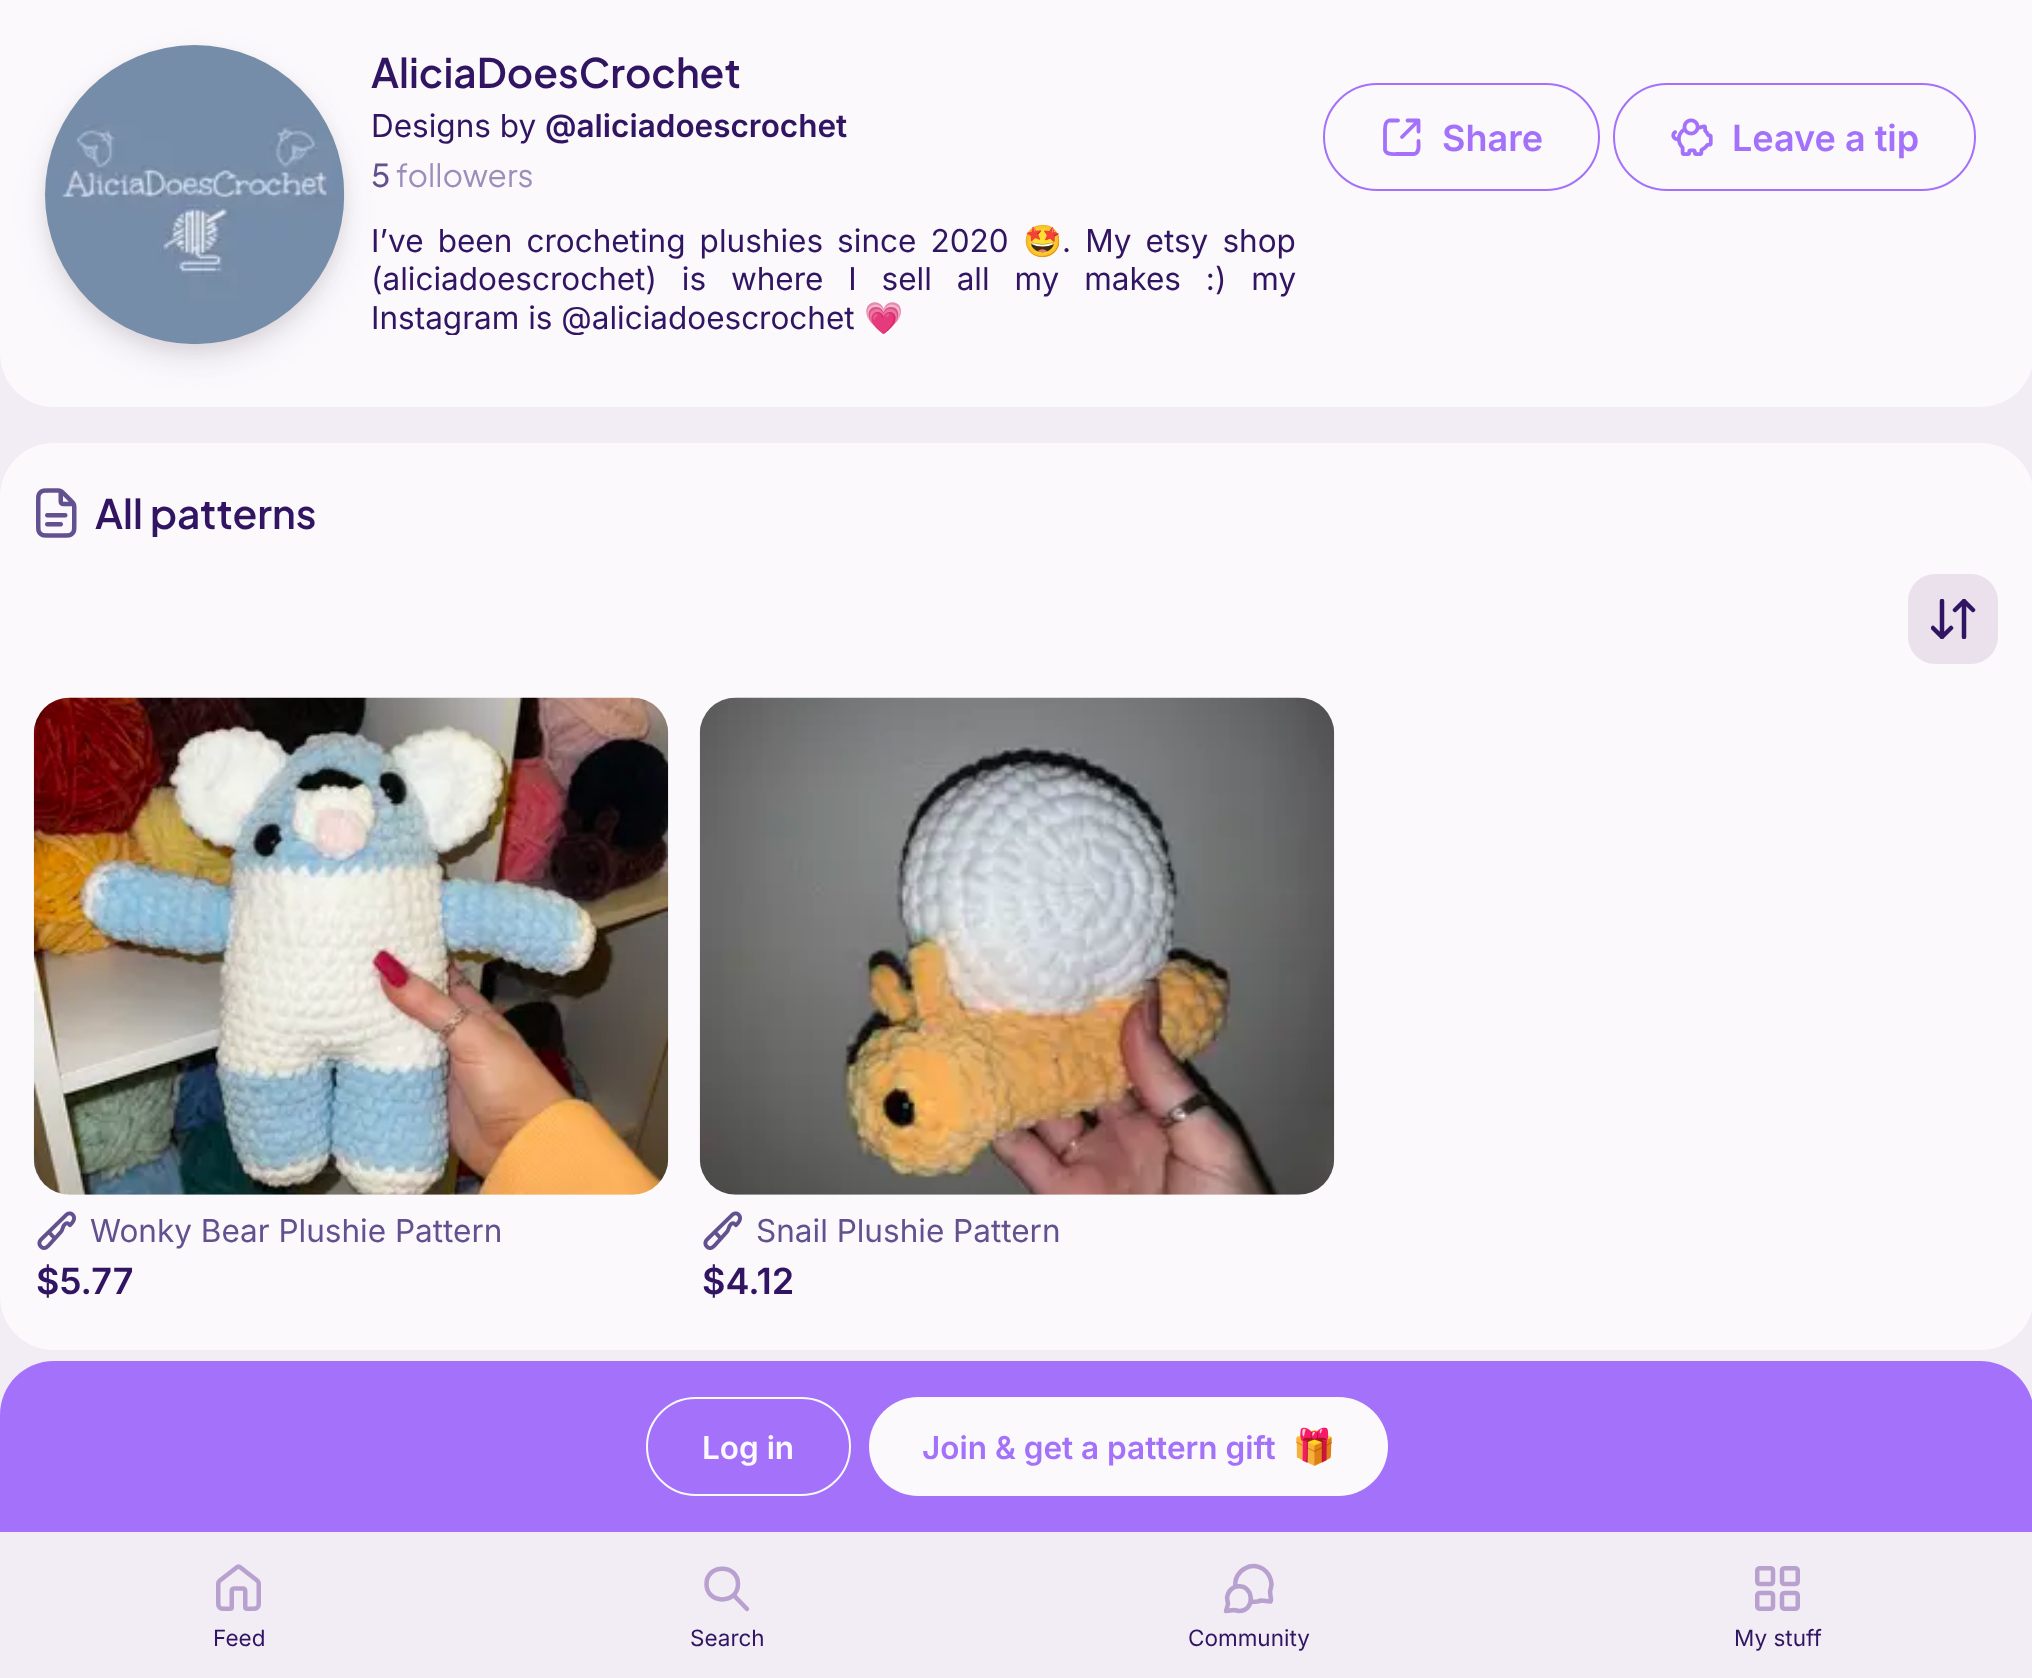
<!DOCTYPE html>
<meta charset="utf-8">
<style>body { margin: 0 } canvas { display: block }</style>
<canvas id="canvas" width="2032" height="1678"></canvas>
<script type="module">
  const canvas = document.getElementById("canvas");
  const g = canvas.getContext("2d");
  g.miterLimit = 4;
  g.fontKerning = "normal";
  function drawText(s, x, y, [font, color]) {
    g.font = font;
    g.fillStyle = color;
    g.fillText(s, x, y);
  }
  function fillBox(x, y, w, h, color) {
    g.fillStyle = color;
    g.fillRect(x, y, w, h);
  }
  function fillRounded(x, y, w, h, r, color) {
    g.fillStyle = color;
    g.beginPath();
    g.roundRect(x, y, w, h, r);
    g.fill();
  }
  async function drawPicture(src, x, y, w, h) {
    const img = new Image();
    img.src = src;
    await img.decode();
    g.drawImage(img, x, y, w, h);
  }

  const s1 = ["600 40.5px Plus Jakarta Sans", "#311462"];
  const s2 = ["31.5px Inter", "#311462"];
  const s3 = ["600 31.5px Inter", "#311462"];
  const s4 = ["500 31.5px Plus Jakarta Sans", "#63518F"];
  const s5 = ["31.5px Plus Jakarta Sans", "#9B8FBA"];
  const s6 = ["600 36px Inter", "#A471FB"];
  const s7 = ["31.5px Noto Color Emoji", "#311462"];
  const s8 = ["31.5px Inter", "#63518F"];
  const s9 = ["600 36px Inter", "#311462"];
  const s10 = ["600 31.5px Inter", "#FBF9FC"];
  const s11 = ["600 31.5px Inter", "#A471FB"];
  const s12 = ["22.5px Inter", "#311462"];

  fillBox(0, 0, 2032, 1678, "#F2EDF5");
  g.fillStyle = "#FBF9FC";
  g.beginPath();
  g.moveTo(0, 0);
  g.lineTo(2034, 0);
  g.lineTo(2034, 353);
  g.bezierCurveTo(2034, 383, 2010, 407, 1980, 407);
  g.lineTo(54, 407);
  g.bezierCurveTo(24, 407, 0, 383, 0, 353);
  g.closePath();
  g.fill();
  g.fillStyle = "rgba(60, 66, 87, 0.12)";
  g.filter = "blur(16px)";
  g.beginPath();
  g.roundRect(45, 61, 299, 299, 149.5);
  g.fill();
  g.filter = "none";
  g.fillStyle = "rgba(145, 112, 112, 0.12)";
  g.filter = "blur(7px)";
  g.beginPath();
  g.roundRect(45, 52, 299, 299, 149.5);
  g.fill();
  g.filter = "none";
  await drawPicture("pic1.png", 45, 45, 300, 300);
  drawText("AliciaDoesCrochet", 371, 88, s1);
  drawText("Designs by", 371, 137, s2);
  drawText("@aliciadoescrochet", 545, 137, s3);
  drawText("5", 371, 187, s4);
  drawText("followers", 396, 187, s5);
  g.beginPath();
  g.roundRect(1324, 84, 275, 106, 53);
  g.strokeStyle = "#A471FB";
  g.lineWidth = 2;
  g.stroke();
  g.beginPath();
  g.moveTo(1418.5, 131.5);
  g.lineTo(1418.5, 120.5);
  g.moveTo(1418.5, 120.5);
  g.lineTo(1407.5, 120.5);
  g.moveTo(1418.5, 120.5);
  g.lineTo(1402, 137);
  g.moveTo(1398, 120.5);
  g.lineTo(1389, 120.5);
  g.bezierCurveTo(1385, 121.5, 1385, 126, 1385, 129.5);
  g.lineTo(1385, 150);
  g.bezierCurveTo(1386.5, 155, 1392.5, 154, 1396.5, 154);
  g.lineTo(1414.5, 154);
  g.bezierCurveTo(1420, 152.5, 1418.5, 145, 1418.5, 141);
  g.lineWidth = 3.8;
  g.lineCap = "round";
  g.lineJoin = "round";
  g.stroke();
  drawText("Share", 1442, 151, s6);
  g.beginPath();
  g.roundRect(1614, 84, 361, 106, 53);
  g.lineWidth = 2;
  g.lineJoin = "miter";
  g.stroke();
  await drawPicture("pic2.png", 1671, 118, 42, 38);
  drawText("Leave a tip", 1732, 151, s6);
  g.wordSpacing = "5.25px";
  drawText("I’ve been crocheting plushies since 2020", 371, 252, s2);
  g.wordSpacing = "0px";
  drawText("🤩", 1023, 252, s7);
  g.wordSpacing = "5.25px";
  drawText(". My etsy shop", 1062, 252, s2);
  g.wordSpacing = "16px";
  drawText("(aliciadoescrochet) is where I sell all my makes :) my", 371, 290, s2);
  g.save();
  g.beginPath();
  g.rect(371, 221, 925, 114);
  g.clip();
  g.wordSpacing = "0px";
  drawText("Instagram is @aliciadoescrochet", 371, 329, s2);
  drawText("💗", 864, 329, s7);
  g.restore();
  fillRounded(0, 443, 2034, 907, 54, "#FBF9FC");
  await drawPicture("pic3.png", 36, 488, 41, 50);
  g.wordSpacing = "0px";
  drawText("All patterns", 95, 529, s1);
  fillRounded(1908, 574, 90, 90, 27, "#EAE1ED");
  g.save();
  g.beginPath();
  g.rect(1931, 599, 45, 40);
  g.clip();
  g.beginPath();
  g.moveTo(1942, 601);
  g.lineTo(1942, 637);
  g.moveTo(1942, 637);
  g.lineTo(1933, 628);
  g.moveTo(1942, 637);
  g.lineTo(1951, 628);
  g.moveTo(1964, 637);
  g.lineTo(1964, 601);
  g.moveTo(1964, 601);
  g.lineTo(1955, 610);
  g.moveTo(1964, 601);
  g.lineTo(1973, 610);
  g.strokeStyle = "#311462";
  g.lineWidth = 4.5;
  g.lineJoin = "round";
  g.stroke();
  g.restore();
  fillRounded(34, 698, 634, 497, 36, "#F0F0F0");
  await drawPicture("pic4.png", 33, 697, 636, 498);
  await drawPicture("pic5.png", 37, 1211, 39, 39);
  drawText("Wonky Bear Plushie Pattern", 90, 1242, s8);
  drawText("$5.77", 36, 1294, s9);
  fillRounded(700, 698, 634, 497, 36, "#F0F0F0");
  await drawPicture("pic6.png", 699, 697, 636, 498);
  await drawPicture("pic5.png", 703, 1211, 39, 39);
  drawText("Snail Plushie Pattern", 756, 1242, s8);
  drawText("$4.12", 702, 1294, s9);
  g.fillStyle = "#A471FB";
  g.beginPath();
  g.moveTo(54, 1361);
  g.lineTo(1980, 1361);
  g.bezierCurveTo(2010, 1361, 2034, 1385, 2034, 1415);
  g.lineTo(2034, 1532);
  g.lineTo(0, 1532);
  g.lineTo(0, 1415);
  g.bezierCurveTo(0, 1385, 24, 1361, 54, 1361);
  g.closePath();
  g.fill();
  g.beginPath();
  g.roundRect(647, 1398, 203, 97, 48.5);
  g.strokeStyle = "#FBF9FC";
  g.stroke();
  drawText("Log in", 702, 1459, s10);
  fillRounded(869, 1397, 519, 99, 49.5, "#FBF9FC");
  drawText("Join & get a pattern gift", 922, 1459, s11);
  await drawPicture("pic7.png", 1296, 1427, 36, 39);
  await drawPicture("pic8.png", 216, 1564, 45, 47);
  drawText("Feed", 213, 1646, s12);
  g.beginPath();
  g.moveTo(747, 1609);
  g.lineTo(733.5, 1595);
  g.moveTo(738, 1584);
  g.bezierCurveTo(738, 1604.5, 706.5, 1604.5, 706.5, 1584);
  g.bezierCurveTo(706.5, 1563.5, 738, 1563.5, 738, 1584);
  g.closePath();
  g.strokeStyle = "#B8A0CF";
  g.lineWidth = 4.5;
  g.lineJoin = "round";
  g.stroke();
  drawText("Search", 690, 1646, s12);
  g.beginPath();
  g.moveTo(1235.5, 1587);
  g.bezierCurveTo(1233, 1570, 1254, 1559, 1266, 1571.5);
  g.bezierCurveTo(1269.5, 1575, 1271, 1579, 1271.5, 1584);
  g.bezierCurveTo(1271.5, 1586.5, 1270.5, 1589, 1270, 1591.5);
  g.lineTo(1271, 1600);
  g.lineTo(1270.5, 1601.5);
  g.lineTo(1261, 1600.5);
  g.lineTo(1257.5, 1601.5);
  g.lineTo(1250.5, 1602);
  g.moveTo(1239, 1611);
  g.bezierCurveTo(1256.5, 1611, 1253.5, 1583, 1236.5, 1586.5);
  g.bezierCurveTo(1232.5, 1587.5, 1229.5, 1590, 1228, 1594);
  g.bezierCurveTo(1225.5, 1599, 1228, 1600, 1228, 1604);
  g.lineTo(1226, 1611);
  g.lineTo(1234, 1610);
  g.closePath();
  g.stroke();
  drawText("Community", 1188, 1646, s12);
  await drawPicture("pic9.png", 1755, 1566, 45, 45);
  drawText("My stuff", 1734, 1646, s12);
</script>
